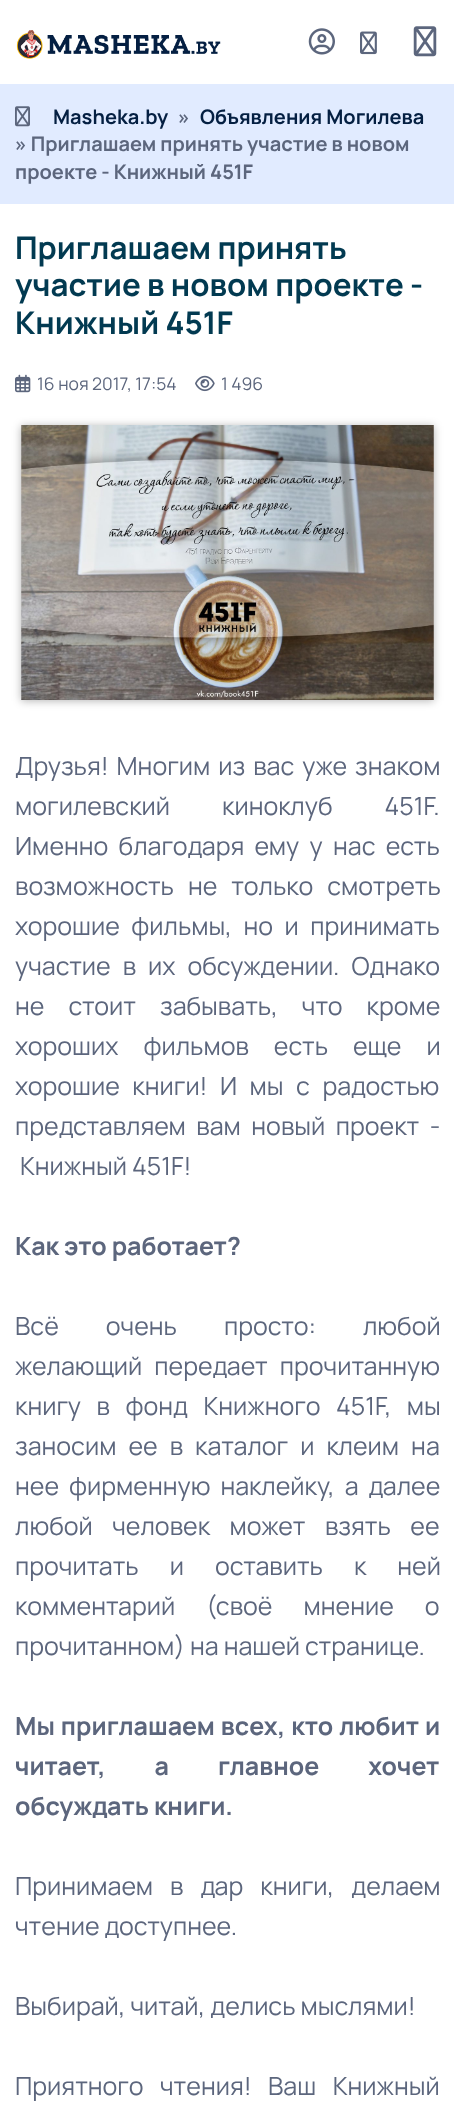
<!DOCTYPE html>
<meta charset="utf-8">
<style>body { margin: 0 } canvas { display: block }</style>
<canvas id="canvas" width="454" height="2126"></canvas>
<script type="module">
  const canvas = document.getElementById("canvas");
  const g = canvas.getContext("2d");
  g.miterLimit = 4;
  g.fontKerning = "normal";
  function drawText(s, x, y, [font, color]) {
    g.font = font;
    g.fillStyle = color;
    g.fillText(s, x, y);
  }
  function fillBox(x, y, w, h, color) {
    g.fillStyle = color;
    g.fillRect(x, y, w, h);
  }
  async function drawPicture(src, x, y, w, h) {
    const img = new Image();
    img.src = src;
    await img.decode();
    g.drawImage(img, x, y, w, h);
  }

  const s1 = ["200 20px Manrope", "#041F42"];
  const s2 = ["200 20px Manrope", "#5C667D"];
  const s3 = ["200 31.25px Manrope", "#023A51"];
  const s4 = ["200 17.5px 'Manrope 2'", "#5C667D"];
  const s5 = ["200 25px 'Manrope 2'", "#5C667D"];
  const s6 = ["200 25px Manrope", "#5C667D"];

  fillBox(0, 0, 454, 2126, "#FFFFFF");
  await drawPicture("pic1.png", 16, 30, 205, 29);
  await drawPicture("pic2.png", 308, 28, 27, 27);
  await drawPicture("pic3.png", 360, 31, 17, 24);
  await drawPicture("pic4.png", 413, 26, 24, 31);
  fillBox(0, 84, 454, 120, "#E1EBFF");
  await drawPicture("pic5.png", 15, 106, 15, 21);
  drawText("Masheka.by", 53, 124, s1);
  drawText("»", 178, 124, s2);
  drawText("Объявления Могилева", 200, 124, s1);
  drawText("» Приглашаем принять участие в новом", 15, 151, s2);
  drawText("проекте - Книжный 451F", 15, 179, s2);
  drawText("Приглашаем принять", 15, 259, s3);
  drawText("участие в новом проекте -", 15, 296, s3);
  drawText("Книжный 451F", 15, 334, s3);
  await drawPicture("pic6.png", 15, 374, 16, 19);
  drawText("16 ноя 2017, 17:54", 37, 390, s4);
  await drawPicture("pic7.png", 195, 375, 20, 17);
  drawText("1 496", 221, 390, s4);
  g.fillStyle = "rgba(0, 0, 0, 0.29)";
  g.filter = "blur(4px)";
  g.beginPath();
  g.rect(21, 426, 413, 275);
  g.fill();
  g.filter = "none";
  await drawPicture("pic8.png", 21, 425, 413, 275);
  g.wordSpacing = "3px";
  drawText("Друзья! Многим из вас уже знаком", 15, 775, s5);
  g.wordSpacing = "47px";
  drawText("могилевский киноклуб 451F.", 15, 815, s5);
  g.wordSpacing = "5.25px";
  drawText("Именно благодаря ему у нас есть", 15, 855, s5);
  g.wordSpacing = "9px";
  drawText("возможность не только смотреть", 15, 895, s5);
  g.wordSpacing = "6.5px";
  drawText("хорошие фильмы, но и принимать", 15, 935, s5);
  g.wordSpacing = "7px";
  drawText("участие в их обсуждении. Однако", 15, 975, s5);
  g.wordSpacing = "19px";
  drawText("не стоит забывать, что кроме", 15, 1015, s5);
  g.wordSpacing = "20px";
  drawText("хороших фильмов есть еще и", 15, 1055, s5);
  g.wordSpacing = "7.5px";
  drawText("хорошие книги! И мы с радостью", 15, 1095, s5);
  g.wordSpacing = "5.5px";
  drawText("представляем вам новый проект -", 15, 1135, s5);
  g.wordSpacing = "0px";
  drawText("Книжный 451F!", 20, 1175, s5);
  drawText("Как это работает?", 15, 1255, s6);
  g.wordSpacing = "42px";
  drawText("Всё очень просто: любой", 15, 1335, s5);
  g.wordSpacing = "7px";
  drawText("желающий передает прочитанную", 15, 1375, s5);
  g.wordSpacing = "10.5px";
  drawText("книгу в фонд Книжного 451F, мы", 15, 1415, s5);
  g.wordSpacing = "7px";
  drawText("заносим ее в каталог и клеим на", 15, 1455, s5);
  g.wordSpacing = "5px";
  drawText("нее фирменную наклейку, а далее", 15, 1495, s5);
  g.wordSpacing = "14.5px";
  drawText("любой человек может взять ее", 15, 1535, s5);
  g.wordSpacing = "26px";
  drawText("прочитать и оставить к ней", 15, 1575, s5);
  drawText("комментарий (своё мнение о", 15, 1615, s5);
  g.wordSpacing = "0px";
  drawText("прочитанном) на нашей странице.", 15, 1655, s5);
  g.wordSpacing = "1px";
  drawText("Мы приглашаем всех, кто любит и", 15, 1735, s6);
  g.wordSpacing = "44px";
  drawText("читает, а главное хочет", 15, 1775, s6);
  g.wordSpacing = "0px";
  drawText("обсуждать книги.", 15, 1815, s6);
  g.wordSpacing = "12px";
  drawText("Принимаем в дар книги, делаем", 15, 1895, s5);
  g.wordSpacing = "0px";
  drawText("чтение доступнее.", 15, 1935, s5);
  drawText("Выбирай, читай, делись мыслями!", 15, 2015, s5);
  g.wordSpacing = "11.5px";
  drawText("Приятного чтения! Ваш Книжный", 15, 2095, s5);
</script>
